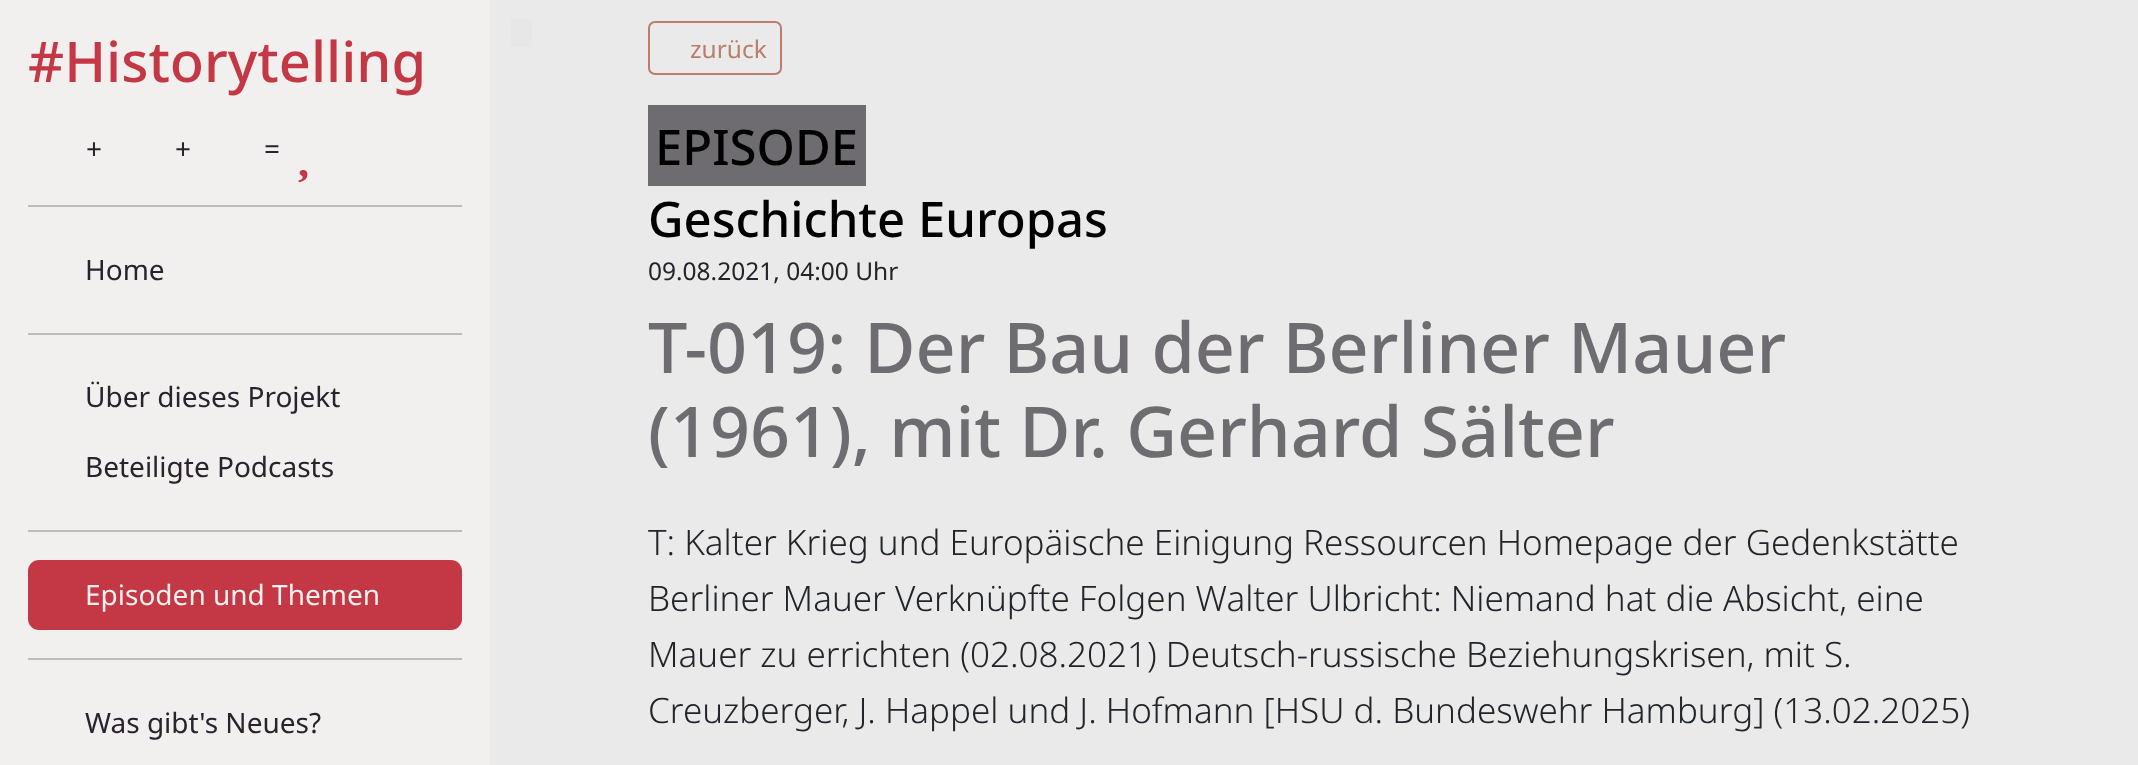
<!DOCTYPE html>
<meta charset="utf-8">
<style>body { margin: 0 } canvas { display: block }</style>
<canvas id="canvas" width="2138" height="765"></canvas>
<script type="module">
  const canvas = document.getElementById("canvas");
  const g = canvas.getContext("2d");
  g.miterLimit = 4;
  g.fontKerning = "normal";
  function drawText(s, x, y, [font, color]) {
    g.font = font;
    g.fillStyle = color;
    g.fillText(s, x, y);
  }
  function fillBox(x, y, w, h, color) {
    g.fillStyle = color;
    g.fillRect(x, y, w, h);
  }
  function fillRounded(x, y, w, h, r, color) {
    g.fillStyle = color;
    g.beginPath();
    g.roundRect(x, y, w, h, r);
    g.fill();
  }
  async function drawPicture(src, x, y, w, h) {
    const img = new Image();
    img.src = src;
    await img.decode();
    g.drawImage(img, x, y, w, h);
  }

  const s1 = ["500 56px Noto Sans", "#C43846"];
  const s2 = ["28px Noto Sans", "#2A232D"];
  const s3 = ["28px Noto Sans", "#F1F0EF"];
  const s4 = ["24.5px Noto Sans", "#BA7E6D"];
  const s5 = ["500 49px Noto Sans", "#000000"];
  const s6 = ["24.5px Noto Sans", "#212529"];
  const s7 = ["500 70px Noto Sans", "#6E6C71"];
  const s8 = ["300 35px Noto Sans", "#212529"];

  fillBox(0, 0, 2138, 765, "#F1F0EF");
  drawText("#Historytelling", 28, 82, s1);
  drawText("+", 86, 159, s2);
  drawText("+", 175, 159, s2);
  drawText("=", 264, 159, s2);
  await drawPicture("pic1.png", 298, 170, 10, 13);
  fillBox(28, 205, 434, 2, "#BDBDBE");
  drawText("Home", 85, 280, s2);
  fillBox(28, 333, 434, 2, "#BDBDBE");
  drawText("Über dieses Projekt", 85, 407, s2);
  drawText("Beteiligte Podcasts", 85, 477, s2);
  fillBox(28, 530, 434, 2, "#BDBDBE");
  fillRounded(28, 560, 434, 70, 11, "#C43846");
  drawText("Episoden und Themen", 85, 605, s3);
  fillBox(28, 658, 434, 2, "#BDBDBE");
  drawText("Was gibt's Neues?", 85, 733, s2);
  fillBox(490, 0, 1648, 765, "#EAEAEB");
  fillBox(511, 19, 21, 28, "#E7E7E8");
  g.beginPath();
  g.roundRect(649, 22, 132, 52, 6);
  g.strokeStyle = "#BA7E6D";
  g.lineWidth = 2;
  g.stroke();
  drawText("zurück", 690, 58, s4);
  fillBox(648, 105, 218, 81, "#6E6C71");
  drawText("EPISODE", 655, 165, s5);
  drawText("Geschichte Europas", 648, 237, s5);
  drawText("09.08.2021, 04:00 Uhr", 648, 280, s6);
  drawText("T-019: Der Bau der Berliner Mauer", 648, 373, s7);
  drawText("(1961), mit Dr. Gerhard Sälter", 648, 457, s7);
  drawText("T: Kalter Krieg und Europäische Einigung Ressourcen Homepage der Gedenkstätte", 648, 555, s8);
  drawText("Berliner Mauer Verknüpfte Folgen Walter Ulbricht: Niemand hat die Absicht, eine", 648, 611, s8);
  drawText("Mauer zu errichten (02.08.2021) Deutsch-russische Beziehungskrisen, mit S.", 648, 667, s8);
  drawText("Creuzberger, J. Happel und J. Hofmann [HSU d. Bundeswehr Hamburg] (13.02.2025)", 648, 723, s8);
</script>
